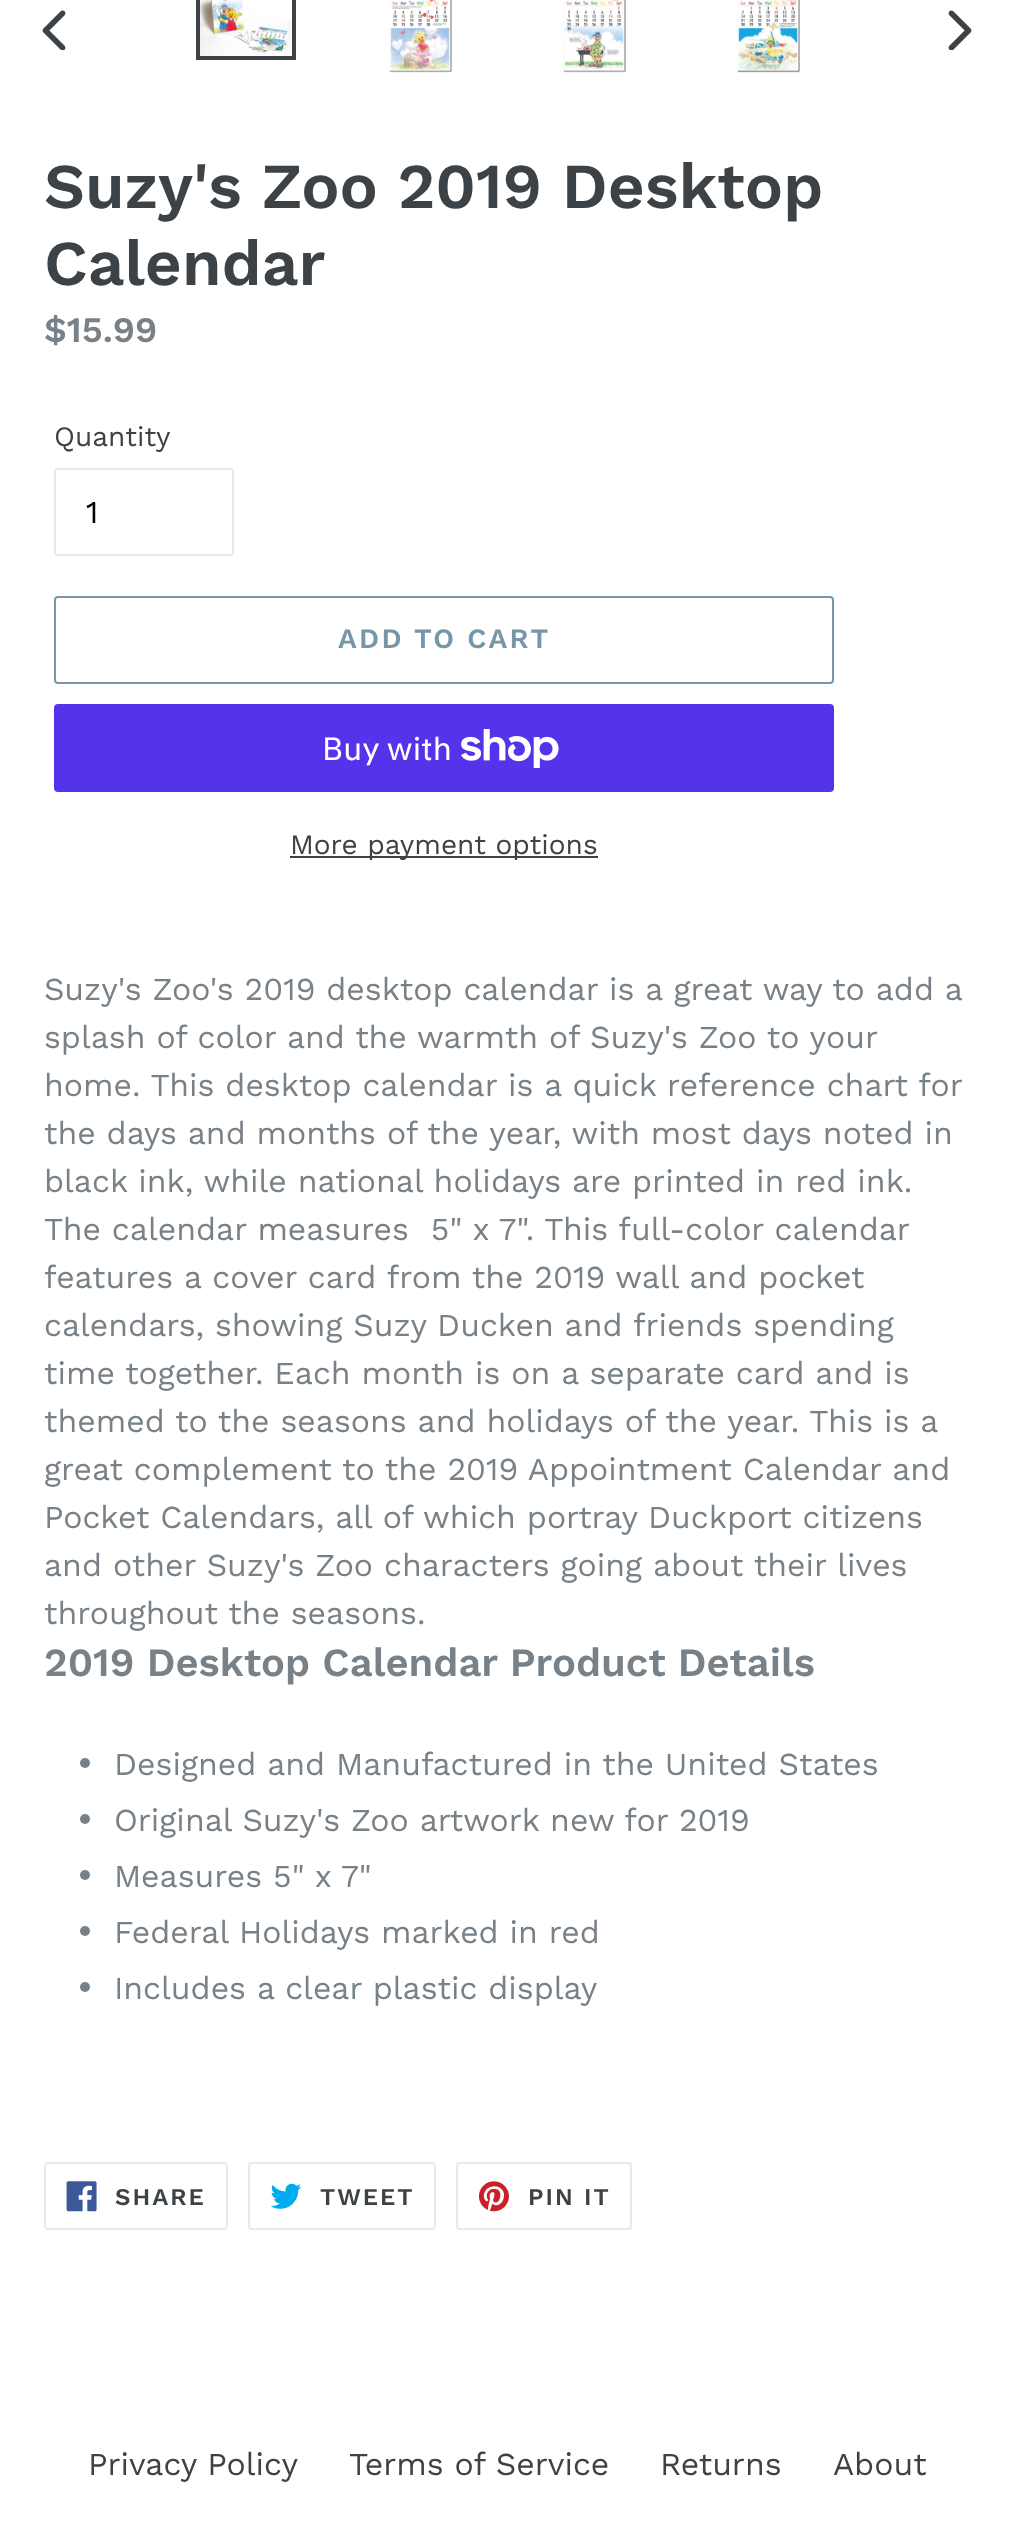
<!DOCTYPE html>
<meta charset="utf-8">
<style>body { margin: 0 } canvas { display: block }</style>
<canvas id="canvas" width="1013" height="2533"></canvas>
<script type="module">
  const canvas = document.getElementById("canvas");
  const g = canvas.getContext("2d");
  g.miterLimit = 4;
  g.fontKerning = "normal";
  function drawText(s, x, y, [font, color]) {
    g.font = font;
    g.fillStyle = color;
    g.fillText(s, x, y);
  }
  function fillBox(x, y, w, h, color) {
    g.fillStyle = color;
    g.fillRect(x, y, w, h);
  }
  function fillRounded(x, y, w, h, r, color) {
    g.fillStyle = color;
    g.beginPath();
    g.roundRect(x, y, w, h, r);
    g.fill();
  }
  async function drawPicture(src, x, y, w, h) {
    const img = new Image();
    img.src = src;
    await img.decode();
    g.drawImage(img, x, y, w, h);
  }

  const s1 = ["600 64px Work Sans", "#3D4246"];
  const s2 = ["600 36px Work Sans", "#788188"];
  const s3 = ["28px Work Sans", "#3D4246"];
  const s4 = ["32px Work Sans", "#000000"];
  const s5 = ["600 28px Work Sans", "#7796A8"];
  const s6 = ["32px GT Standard", "#FFFFFF"];
  const s7 = ["32px Work Sans", "#788188"];
  const s8 = ["600 40px Work Sans", "#788188"];
  const s9 = ["600 24px Work Sans", "#3D4246"];
  const s10 = ["32px Work Sans", "#3D4246"];

  fillBox(0, 0, 1013, 2533, "#FFFFFF");
  await drawPicture("pic1.png", 42, 10, 24, 40);
  g.strokeStyle = "#3D4246";
  g.lineWidth = 4;
  g.strokeRect(198, -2, 96, 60);
  await drawPicture("pic2.png", 200, 0, 92, 56);
  await drawPicture("pic3.png", 389, 0, 63, 73);
  await drawPicture("pic4.png", 563, 0, 63, 73);
  await drawPicture("pic5.png", 737, 0, 63, 73);
  await drawPicture("pic6.png", 948, 10, 24, 40);
  drawText("Suzy's Zoo 2019 Desktop", 44, 208, s1);
  drawText("Calendar", 44, 285, s1);
  drawText("$15.99", 44, 342, s2);
  drawText("Quantity", 54, 446, s3);
  g.beginPath();
  g.roundRect(55, 469, 178, 86, 3);
  g.strokeStyle = "#E8E9EB";
  g.lineWidth = 2;
  g.stroke();
  drawText("1", 86, 523, s4);
  g.beginPath();
  g.roundRect(55, 597, 778, 86, 3);
  g.strokeStyle = "#7796A8";
  g.stroke();
  g.letterSpacing = "2.25px";
  drawText("ADD TO CART", 338, 648, s5);
  fillRounded(54, 704, 780, 88, 4, "#5433EB");
  g.letterSpacing = "0px";
  drawText("Buy with", 322, 760, s6);
  await drawPicture("pic7.png", 461, 729, 98, 39);
  fillBox(290, 856, 308, 2, "#3D4246");
  drawText("More payment options", 290, 854, s3);
  drawText("Suzy's Zoo's 2019 desktop calendar is a great way to add a", 44, 1000, s7);
  drawText("splash of color and the warmth of Suzy's Zoo to your", 44, 1048, s7);
  drawText("home. This desktop calendar is a quick reference chart for", 44, 1096, s7);
  drawText("the days and months of the year, with most days noted in", 44, 1144, s7);
  drawText("black ink, while national holidays are printed in red ink.", 44, 1192, s7);
  drawText("The calendar measures  5\" x 7\". This full-color calendar", 44, 1240, s7);
  drawText("features a cover card from the 2019 wall and pocket", 44, 1288, s7);
  drawText("calendars, showing Suzy Ducken and friends spending", 44, 1336, s7);
  drawText("time together. Each month is on a separate card and is", 44, 1384, s7);
  drawText("themed to the seasons and holidays of the year. This is a", 44, 1432, s7);
  drawText("great complement to the 2019 Appointment Calendar and", 44, 1480, s7);
  drawText("Pocket Calendars, all of which portray Duckport citizens", 44, 1528, s7);
  drawText("and other Suzy's Zoo characters going about their lives", 44, 1576, s7);
  drawText("throughout the seasons.", 44, 1624, s7);
  drawText("2019 Desktop Calendar Product Details", 44, 1676, s8);
  g.beginPath();
  g.arc(85, 1763, 5, 0, Math.PI * 2);
  g.fill();
  drawText("Designed and Manufactured in the United States", 114, 1775, s7);
  g.beginPath();
  g.arc(85, 1819, 5, 0, Math.PI * 2);
  g.fill();
  drawText("Original Suzy's Zoo artwork new for 2019", 114, 1831, s7);
  g.beginPath();
  g.arc(85, 1875, 5, 0, Math.PI * 2);
  g.fill();
  drawText("Measures 5\" x 7\"", 114, 1887, s7);
  g.beginPath();
  g.arc(85, 1931, 5, 0, Math.PI * 2);
  g.fill();
  drawText("Federal Holidays marked in red", 114, 1943, s7);
  g.beginPath();
  g.arc(85, 1987, 5, 0, Math.PI * 2);
  g.fill();
  drawText("Includes a clear plastic display", 114, 1999, s7);
  g.beginPath();
  g.roundRect(45, 2163, 182, 66, 3);
  g.strokeStyle = "#E8E9EB";
  g.stroke();
  await drawPicture("pic8.png", 66, 2181, 31, 31);
  g.letterSpacing = "2px";
  drawText("SHARE", 115, 2205, s9);
  g.beginPath();
  g.roundRect(249, 2163, 186, 66, 3);
  g.stroke();
  await drawPicture("pic9.png", 270, 2183, 32, 26);
  drawText("TWEET", 320, 2205, s9);
  g.beginPath();
  g.roundRect(457, 2163, 174, 66, 3);
  g.stroke();
  await drawPicture("pic10.png", 478, 2181, 31, 31);
  drawText("PIN IT", 528, 2205, s9);
  g.letterSpacing = "0px";
  drawText("Privacy Policy", 88, 2475, s10);
  drawText("Terms of Service", 349, 2475, s10);
  drawText("Returns", 660, 2475, s10);
  drawText("About", 833, 2475, s10);
</script>
